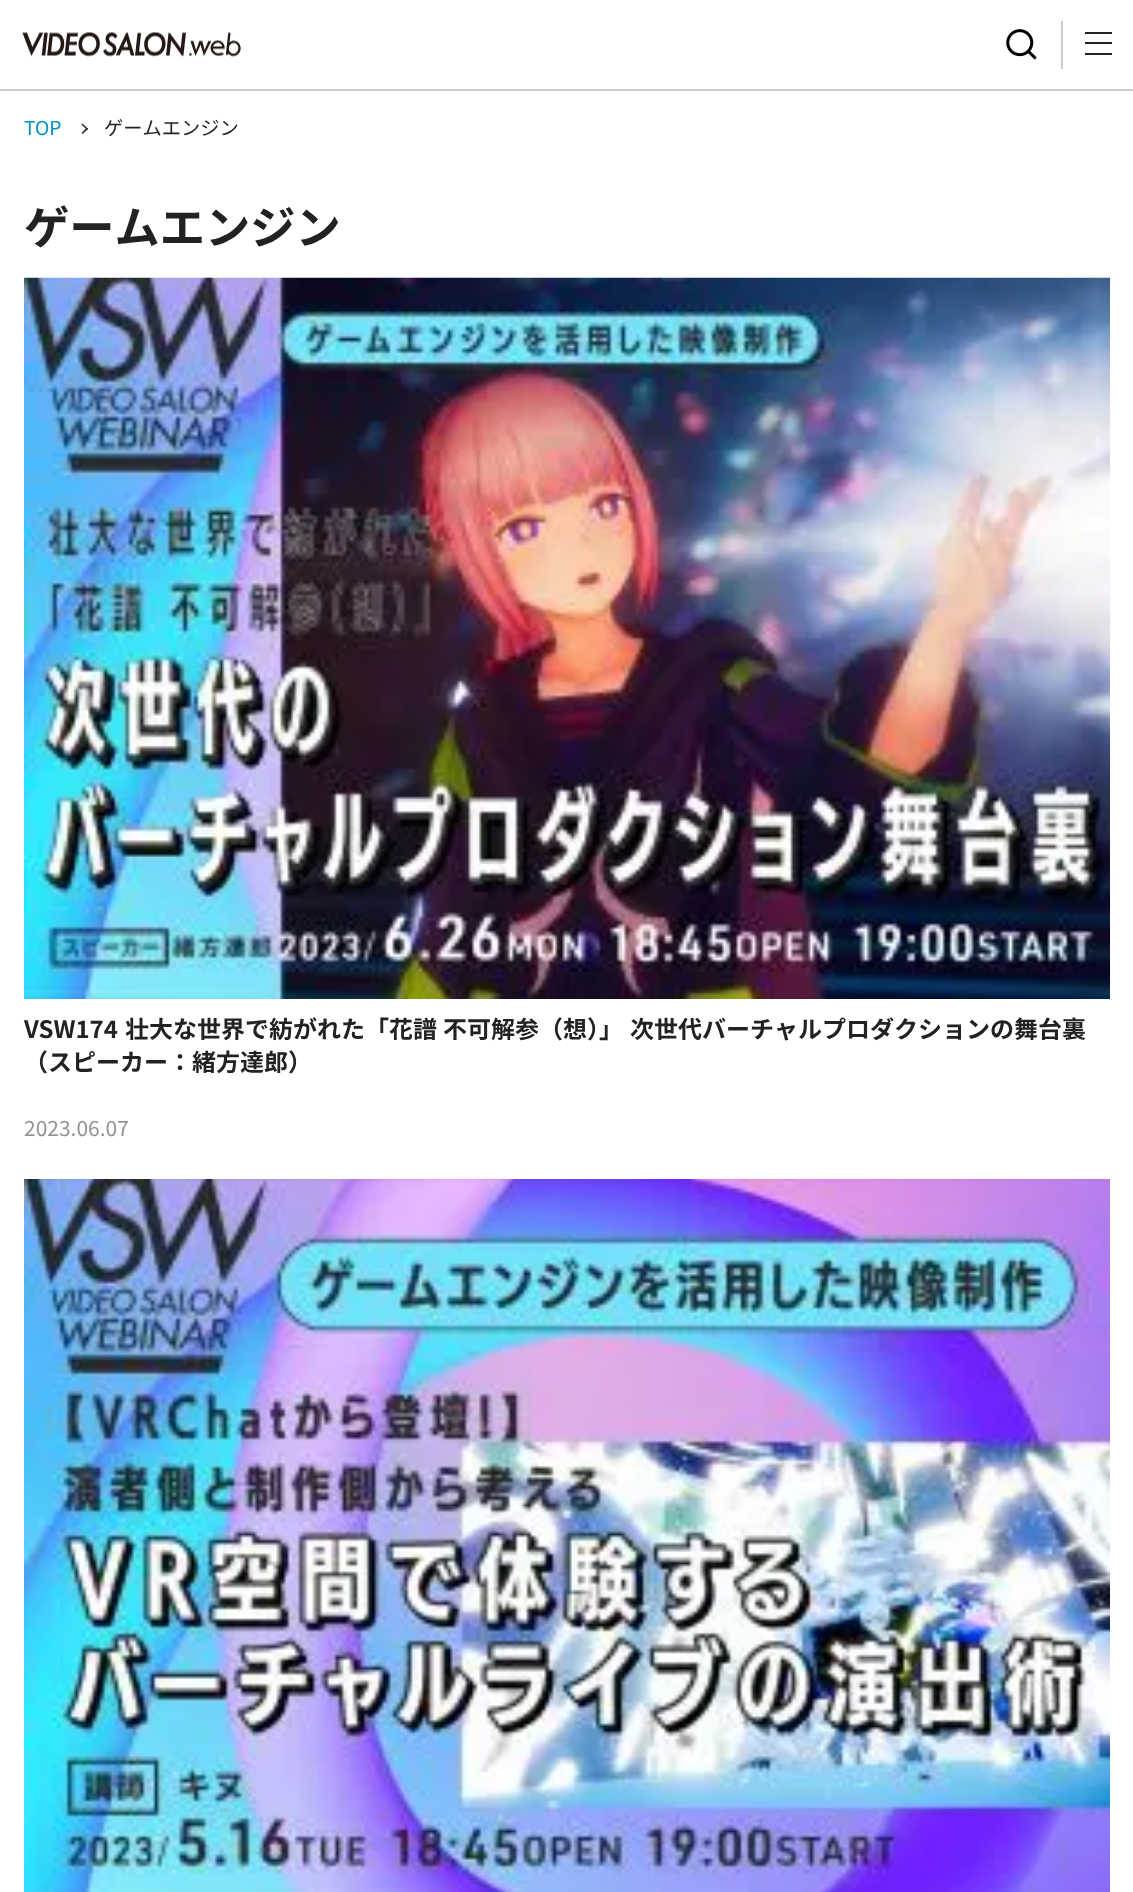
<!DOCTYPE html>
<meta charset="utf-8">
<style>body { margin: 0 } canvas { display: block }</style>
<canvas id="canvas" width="1133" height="1892"></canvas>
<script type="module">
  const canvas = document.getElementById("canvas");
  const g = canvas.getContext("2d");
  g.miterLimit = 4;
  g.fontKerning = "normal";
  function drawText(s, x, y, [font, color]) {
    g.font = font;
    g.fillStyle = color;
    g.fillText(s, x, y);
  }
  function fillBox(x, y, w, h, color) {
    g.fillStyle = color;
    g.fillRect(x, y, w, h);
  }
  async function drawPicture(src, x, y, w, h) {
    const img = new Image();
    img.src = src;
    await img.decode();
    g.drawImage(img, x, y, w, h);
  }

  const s1 = ["19.25px Noto Sans JP", "#0092C0"];
  const s2 = ["19.25px Noto Sans JP", "#222222"];
  const s3 = ["bold 45.25px Noto Sans JP", "#222222"];
  const s4 = ["bold 24px Noto Sans JP", "#222222"];
  const s5 = ["21px Noto Sans JP", "#939393"];

  fillBox(0, 0, 1133, 1892, "#FFFFFF");
  fillBox(0, 89, 1133, 2, "#CCCCCC");
  await drawPicture("pic1.png", 22, 32, 219, 25);
  await drawPicture("pic2.png", 1006, 29, 31, 31);
  fillBox(1061, 21, 2, 48, "#CCCCCC");
  fillBox(1085, 32, 27, 2, "#222222");
  fillBox(1085, 42, 27, 2, "#222222");
  fillBox(1085, 53, 27, 2, "#222222");
  drawText("TOP", 24, 135, s1);
  g.fillStyle = "#222222";
  g.beginPath();
  g.moveTo(82.5, 123.5);
  g.lineTo(88, 129);
  g.lineTo(87, 130);
  g.lineTo(81.5, 124.5);
  g.closePath();
  g.fill();
  g.beginPath();
  g.moveTo(87, 127.5);
  g.lineTo(88, 129);
  g.lineTo(82.5, 134);
  g.lineTo(81.5, 133);
  g.closePath();
  g.fill();
  drawText("ゲームエンジン", 104, 135, s2);
  drawText("ゲームエンジン", 24, 244, s3);
  await drawPicture("pic3.png", 24, 277, 1086, 722);
  drawText("VSW174", 24, 1038, s4);
  drawText("壮大な世界で紡がれた「花譜", 125, 1038, s4);
  drawText("不可解参（想）」", 443, 1038, s4);
  drawText("次世代バーチャルプロダクションの舞台裏", 630, 1038, s4);
  drawText("（スピーカー：緒方達郎）", 24, 1071, s4);
  drawText("2023.06.07", 24, 1136, s5);
  await drawPicture("pic4.png", 24, 1179, 1086, 713);
</script>
